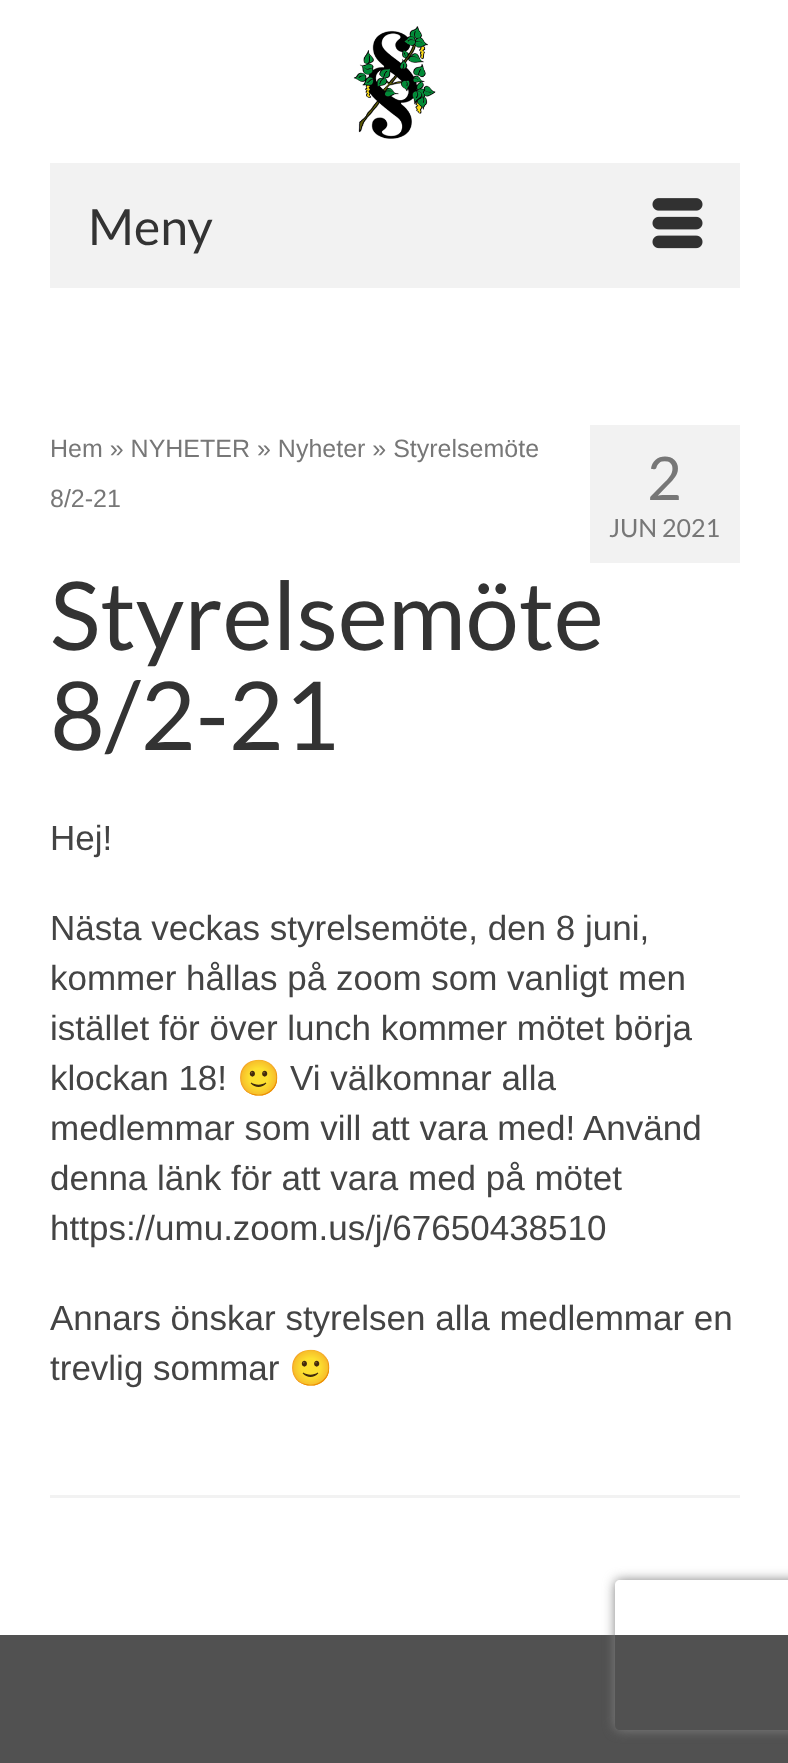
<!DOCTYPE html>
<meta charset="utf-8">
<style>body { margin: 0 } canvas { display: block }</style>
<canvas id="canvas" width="788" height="1763"></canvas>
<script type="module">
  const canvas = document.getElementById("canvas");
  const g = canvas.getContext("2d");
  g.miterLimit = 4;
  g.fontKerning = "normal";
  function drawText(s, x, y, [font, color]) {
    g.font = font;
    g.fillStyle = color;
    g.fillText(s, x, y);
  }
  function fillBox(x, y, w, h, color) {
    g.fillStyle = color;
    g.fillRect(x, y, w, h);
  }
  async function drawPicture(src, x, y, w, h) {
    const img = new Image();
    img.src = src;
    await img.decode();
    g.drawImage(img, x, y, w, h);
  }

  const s1 = ["50px Lato", "#333333"];
  const s2 = ["25px Liberation Sans", "#777777"];
  const s3 = ["95px Lato", "#333333"];
  const s4 = ["60px Lato", "#777777"];
  const s5 = ["25px Lato", "#777777"];
  const s6 = ["35px Liberation Sans", "#444444"];
  const s7 = ["35px Noto Color Emoji", "#444444"];

  fillBox(0, 0, 788, 1763, "#FFFFFF");
  await drawPicture("pic1.png", 353, 26, 83, 113);
  fillBox(50, 163, 690, 125, "#F2F2F2");
  drawText("Meny", 88, 245, s1);
  await drawPicture("pic2.png", 652, 198, 51, 51);
  drawText("Hem » NYHETER » Nyheter » Styrelsemöte", 50, 457, s2);
  drawText("8/2-21", 50, 507, s2);
  drawText("Styrelsemöte", 50, 650, s3);
  drawText("8/2-21", 50, 750, s3);
  fillBox(590, 425, 150, 138, "#F2F2F2");
  drawText("2", 647, 500, s4);
  drawText("JUN 2021", 609, 537, s5);
  drawText("Hej!", 50, 850, s6);
  drawText("Nästa veckas styrelsemöte, den 8 juni,", 50, 940, s6);
  drawText("kommer hållas på zoom som vanligt men", 50, 990, s6);
  drawText("istället för över lunch kommer mötet börja", 50, 1040, s6);
  drawText("klockan 18!", 50, 1090, s6);
  drawText("🙂", 237, 1090, s7);
  drawText("Vi välkomnar alla", 290, 1090, s6);
  drawText("medlemmar som vill att vara med! Använd", 50, 1140, s6);
  drawText("denna länk för att vara med på mötet", 50, 1190, s6);
  drawText("https://umu.zoom.us/j/67650438510", 50, 1240, s6);
  drawText("Annars önskar styrelsen alla medlemmar en", 50, 1330, s6);
  drawText("trevlig sommar", 50, 1380, s6);
  drawText("🙂", 289, 1380, s7);
  fillBox(50, 1495, 690, 3, "#F2F2F2");
  fillBox(0, 1635, 788, 128, "#515151");
  g.save();
  g.beginPath();
  g.moveTo(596, 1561);
  g.lineTo(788, 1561);
  g.lineTo(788, 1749);
  g.lineTo(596, 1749);
  g.closePath();
  g.moveTo(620, 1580);
  g.lineTo(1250, 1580);
  g.bezierCurveTo(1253, 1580, 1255, 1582, 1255, 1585);
  g.lineTo(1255, 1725);
  g.bezierCurveTo(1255, 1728, 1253, 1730, 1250, 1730);
  g.lineTo(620, 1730);
  g.bezierCurveTo(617, 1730, 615, 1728, 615, 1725);
  g.lineTo(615, 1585);
  g.bezierCurveTo(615, 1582, 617, 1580, 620, 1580);
  g.closePath();
  g.clip("evenodd");
  g.fillStyle = "#808080";
  g.filter = "blur(6px)";
  g.beginPath();
  g.roundRect(615, 1580, 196, 150, 5);
  g.fill();
  g.filter = "none";
  g.restore();
</script>
